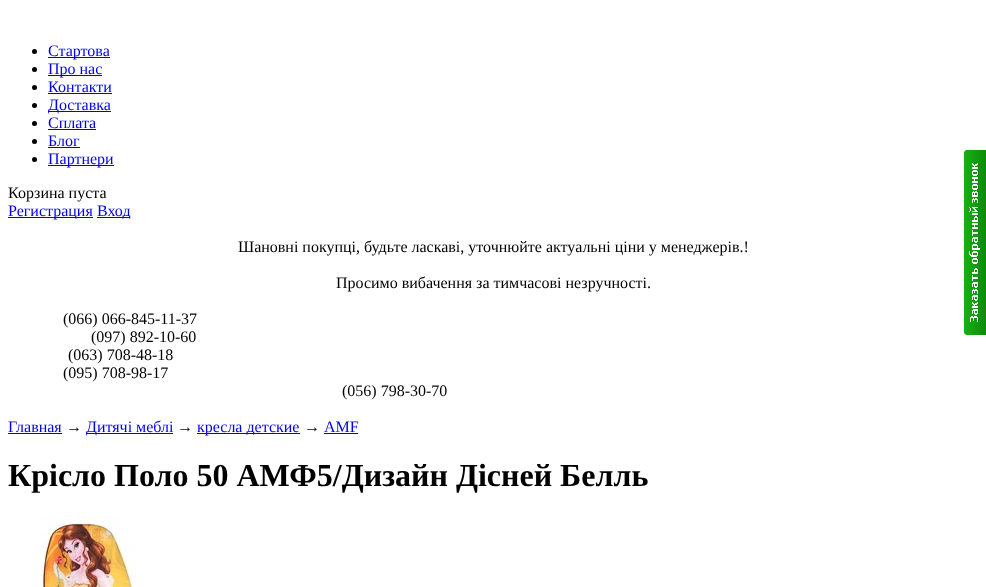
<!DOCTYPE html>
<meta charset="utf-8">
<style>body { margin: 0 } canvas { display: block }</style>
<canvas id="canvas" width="986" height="587"></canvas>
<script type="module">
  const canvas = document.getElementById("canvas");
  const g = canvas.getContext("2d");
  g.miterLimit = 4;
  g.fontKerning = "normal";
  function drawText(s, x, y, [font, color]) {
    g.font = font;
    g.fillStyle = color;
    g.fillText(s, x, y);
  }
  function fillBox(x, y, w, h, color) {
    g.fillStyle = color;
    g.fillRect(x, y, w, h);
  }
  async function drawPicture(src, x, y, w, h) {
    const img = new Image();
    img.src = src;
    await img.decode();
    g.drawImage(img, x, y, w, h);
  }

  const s1 = ["16px Liberation Serif", "#0000EE"];
  const s2 = ["16px Liberation Serif", "#000000"];
  const s3 = ["bold 32px Liberation Serif", "#000000"];

  fillBox(0, 0, 986, 587, "#FFFFFF");
  g.fillStyle = "#000000";
  g.beginPath();
  g.arc(34.5, 51.5, 2.5, 0, Math.PI * 2);
  g.fill();
  fillBox(48, 57, 62, 1, "#0000EE");
  drawText("Стартова", 48, 56, s1);
  g.fillStyle = "#000000";
  g.beginPath();
  g.arc(34.5, 69.5, 2.5, 0, Math.PI * 2);
  g.fill();
  fillBox(48, 75, 54, 1, "#0000EE");
  drawText("Про нас", 48, 74, s1);
  g.fillStyle = "#000000";
  g.beginPath();
  g.arc(34.5, 87.5, 2.5, 0, Math.PI * 2);
  g.fill();
  drawText("Контакти", 48, 92, s1);
  fillBox(48, 93, 64, 1, "#0000EE");
  g.fillStyle = "#000000";
  g.beginPath();
  g.arc(34.5, 105.5, 2.5, 0, Math.PI * 2);
  g.fill();
  fillBox(48, 111, 63, 1, "#0000EE");
  drawText("Доставка", 48, 110, s1);
  g.fillStyle = "#000000";
  g.beginPath();
  g.arc(34.5, 123.5, 2.5, 0, Math.PI * 2);
  g.fill();
  drawText("Сплата", 48, 128, s1);
  fillBox(48, 129, 48, 1, "#0000EE");
  g.fillStyle = "#000000";
  g.beginPath();
  g.arc(34.5, 141.5, 2.5, 0, Math.PI * 2);
  g.fill();
  drawText("Блог", 48, 146, s1);
  fillBox(48, 147, 32, 1, "#0000EE");
  g.fillStyle = "#000000";
  g.beginPath();
  g.arc(34.5, 159.5, 2.5, 0, Math.PI * 2);
  g.fill();
  fillBox(48, 165, 66, 1, "#0000EE");
  drawText("Партнери", 48, 164, s1);
  drawText("Корзина пуста", 8, 198, s2);
  fillBox(8, 217, 85, 1, "#0000EE");
  drawText("Регистрация", 8, 216, s1);
  fillBox(97, 217, 33, 1, "#0000EE");
  drawText("Вход", 97, 216, s1);
  drawText("Шановні покупці, будьте ласкаві, уточнюйте актуальні ціни у менеджерів.!", 238, 252, s2);
  await drawPicture("pic1.png", 964, 150, 22, 185);
  drawText("Просимо вибачення за тимчасові незручності.", 336, 288, s2);
  drawText("(066) 066-845-11-37", 63, 324, s2);
  drawText("(097) 892-10-60", 91, 342, s2);
  drawText("(063) 708-48-18", 68, 360, s2);
  drawText("(095) 708-98-17", 63, 378, s2);
  drawText("(056) 798-30-70", 342, 396, s2);
  drawText("Главная", 8, 432, s1);
  fillBox(8, 433, 54, 1, "#0000EE");
  drawText("→", 66, 432, s2);
  fillBox(86, 433, 87, 1, "#0000EE");
  drawText("Дитячі меблі", 86, 432, s1);
  drawText("→", 177, 432, s2);
  fillBox(197, 433, 103, 1, "#0000EE");
  drawText("кресла детские", 197, 432, s1);
  drawText("→", 304, 432, s2);
  drawText("AMF", 324, 432, s1);
  fillBox(324, 433, 34, 1, "#0000EE");
  drawText("Крісло Поло 50 АМФ5/Дизайн Дісней Белль", 8, 486, s3);
  await drawPicture("pic2.png", 40, 516, 96, 71);
</script>
